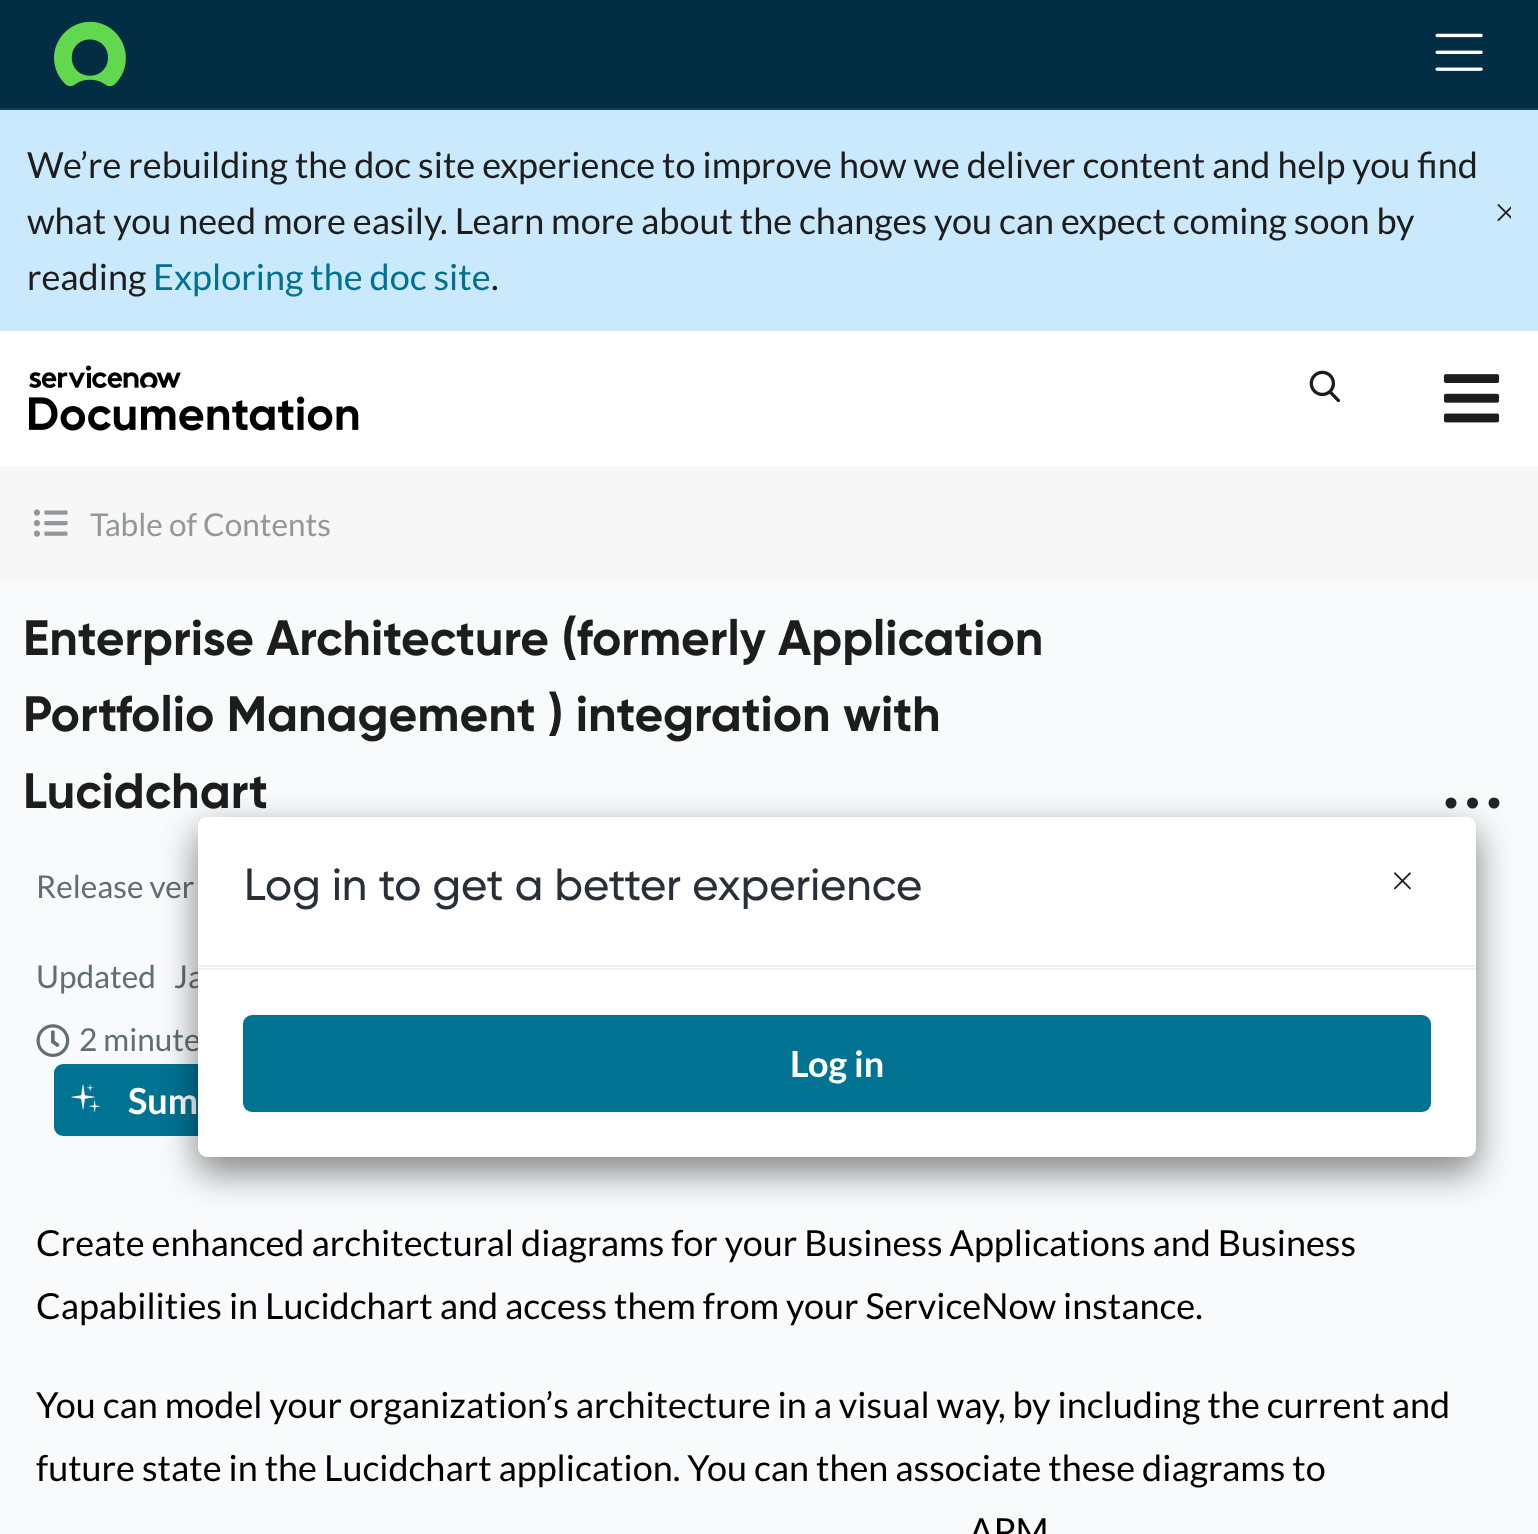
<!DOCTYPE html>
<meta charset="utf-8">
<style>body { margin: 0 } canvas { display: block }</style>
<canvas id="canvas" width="1538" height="1534"></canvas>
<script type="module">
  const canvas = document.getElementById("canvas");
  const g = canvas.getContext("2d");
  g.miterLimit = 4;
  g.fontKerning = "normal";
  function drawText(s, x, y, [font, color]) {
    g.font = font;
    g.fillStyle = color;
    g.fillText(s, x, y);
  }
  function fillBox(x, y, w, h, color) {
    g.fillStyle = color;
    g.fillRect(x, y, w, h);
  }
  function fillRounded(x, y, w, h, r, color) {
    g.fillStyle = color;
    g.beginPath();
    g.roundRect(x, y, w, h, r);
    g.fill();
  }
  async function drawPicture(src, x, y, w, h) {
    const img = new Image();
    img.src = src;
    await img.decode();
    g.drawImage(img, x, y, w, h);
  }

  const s1 = ["36px Lato", "#1D1D1D"];
  const s2 = ["36px Lato", "#00718F"];
  const s3 = ["31.5px Lato", "#93979A"];
  const s4 = ["bold 49.5px Gilroy", "#1D1D1D"];
  const s5 = ["31.5px Lato", "#606E74"];
  const s6 = ["bold 36px Lato", "#FFFFFF"];
  const s7 = ["36px Lato", "#000000"];
  const s8 = ["500 45px Gilroy", "#282F36"];

  fillBox(0, 0, 1538, 1534, "#FFFFFF");
  fillBox(0, 0, 1538, 108, "#032D42");
  fillBox(0, 108, 1538, 2, "#173E51");
  await drawPicture("pic1.png", 54, 21, 72, 66);
  await drawPicture("pic2.png", 1435, 33, 48, 38);
  fillBox(0, 110, 1538, 221, "#CBE9FC");
  drawText("We’re rebuilding the doc site experience to improve how we deliver content and help you find", 27, 178, s1);
  drawText("what you need more easily. Learn more about the changes you can expect coming soon by", 27, 234, s1);
  drawText("reading", 27, 290, s1);
  drawText("Exploring the doc site", 153, 290, s2);
  drawText(".", 491, 290, s1);
  await drawPicture("pic3.png", 1497, 204, 14, 17);
  await drawPicture("pic4.png", 28, 365, 331, 66);
  await drawPicture("pic5.png", 1309, 370, 31, 33);
  await drawPicture("pic6.png", 1443, 374, 57, 49);
  fillBox(0, 581, 1538, 953, "#F8FAFC");
  fillBox(0, 466, 1538, 115, "#F7F7F7");
  await drawPicture("pic7.png", 34, 509, 34, 28);
  drawText("Table of Contents", 90, 536, s3);
  drawText("Enterprise Architecture (formerly Application", 23, 655, s4);
  drawText("Portfolio Management ) integration with", 23, 731, s4);
  drawText("Lucidchart", 23, 808, s4);
  g.fillStyle = "#212529";
  g.beginPath();
  g.arc(1451, 803, 5.5, 0, Math.PI * 2);
  g.fill();
  g.beginPath();
  g.arc(1472.5, 803, 5.5, 0, Math.PI * 2);
  g.fill();
  g.beginPath();
  g.arc(1494, 803, 5.5, 0, Math.PI * 2);
  g.fill();
  drawText("Release ver", 36, 898, s5);
  drawText("Updated", 36, 988, s5);
  drawText("Ja", 174, 988, s5);
  await drawPicture("pic8.png", 36, 1024, 34, 33);
  drawText("2 minute", 79, 1051, s5);
  fillRounded(54, 1064, 270, 72, 9, "#007393");
  await drawPicture("pic9.png", 71, 1084, 30, 29);
  drawText("Sum", 128, 1114, s6);
  drawText("Create enhanced architectural diagrams for your Business Applications and Business", 36, 1256, s7);
  drawText("Capabilities in Lucidchart and access them from your ServiceNow instance.", 36, 1319, s7);
  drawText("You can model your organization’s architecture in a visual way, by including the current and", 36, 1418, s7);
  drawText("future state in the Lucidchart application. You can then associate these diagrams to", 36, 1481, s7);
  drawText("APM", 969, 1544, s7);
  g.fillStyle = "rgba(0, 0, 0, 0.25)";
  g.filter = "blur(17px)";
  g.beginPath();
  g.roundRect(198, 828, 1278, 340, 9);
  g.fill();
  g.filter = "none";
  g.fillStyle = "rgba(0, 0, 0, 0.27)";
  g.filter = "blur(18px)";
  g.beginPath();
  g.roundRect(198, 835, 1278, 340, 9);
  g.fill();
  g.filter = "none";
  fillRounded(198, 817, 1278, 340, 9, "#FFFFFF");
  g.beginPath();
  g.roundRect(198, 817, 1278, 151, [9, 9, 0, 0]);
  g.fill();
  fillBox(198, 965, 1278, 2, "#F1F1F1");
  drawText("Log in to get a better experience", 244, 900, s8);
  await drawPicture("pic10.png", 1394, 872, 17, 18);
  fillBox(198, 968, 1278, 2, "#F1F1F1");
  fillRounded(243, 1015, 1188, 97, 9, "#007393");
  drawText("Log in", 790, 1077, s6);
</script>
